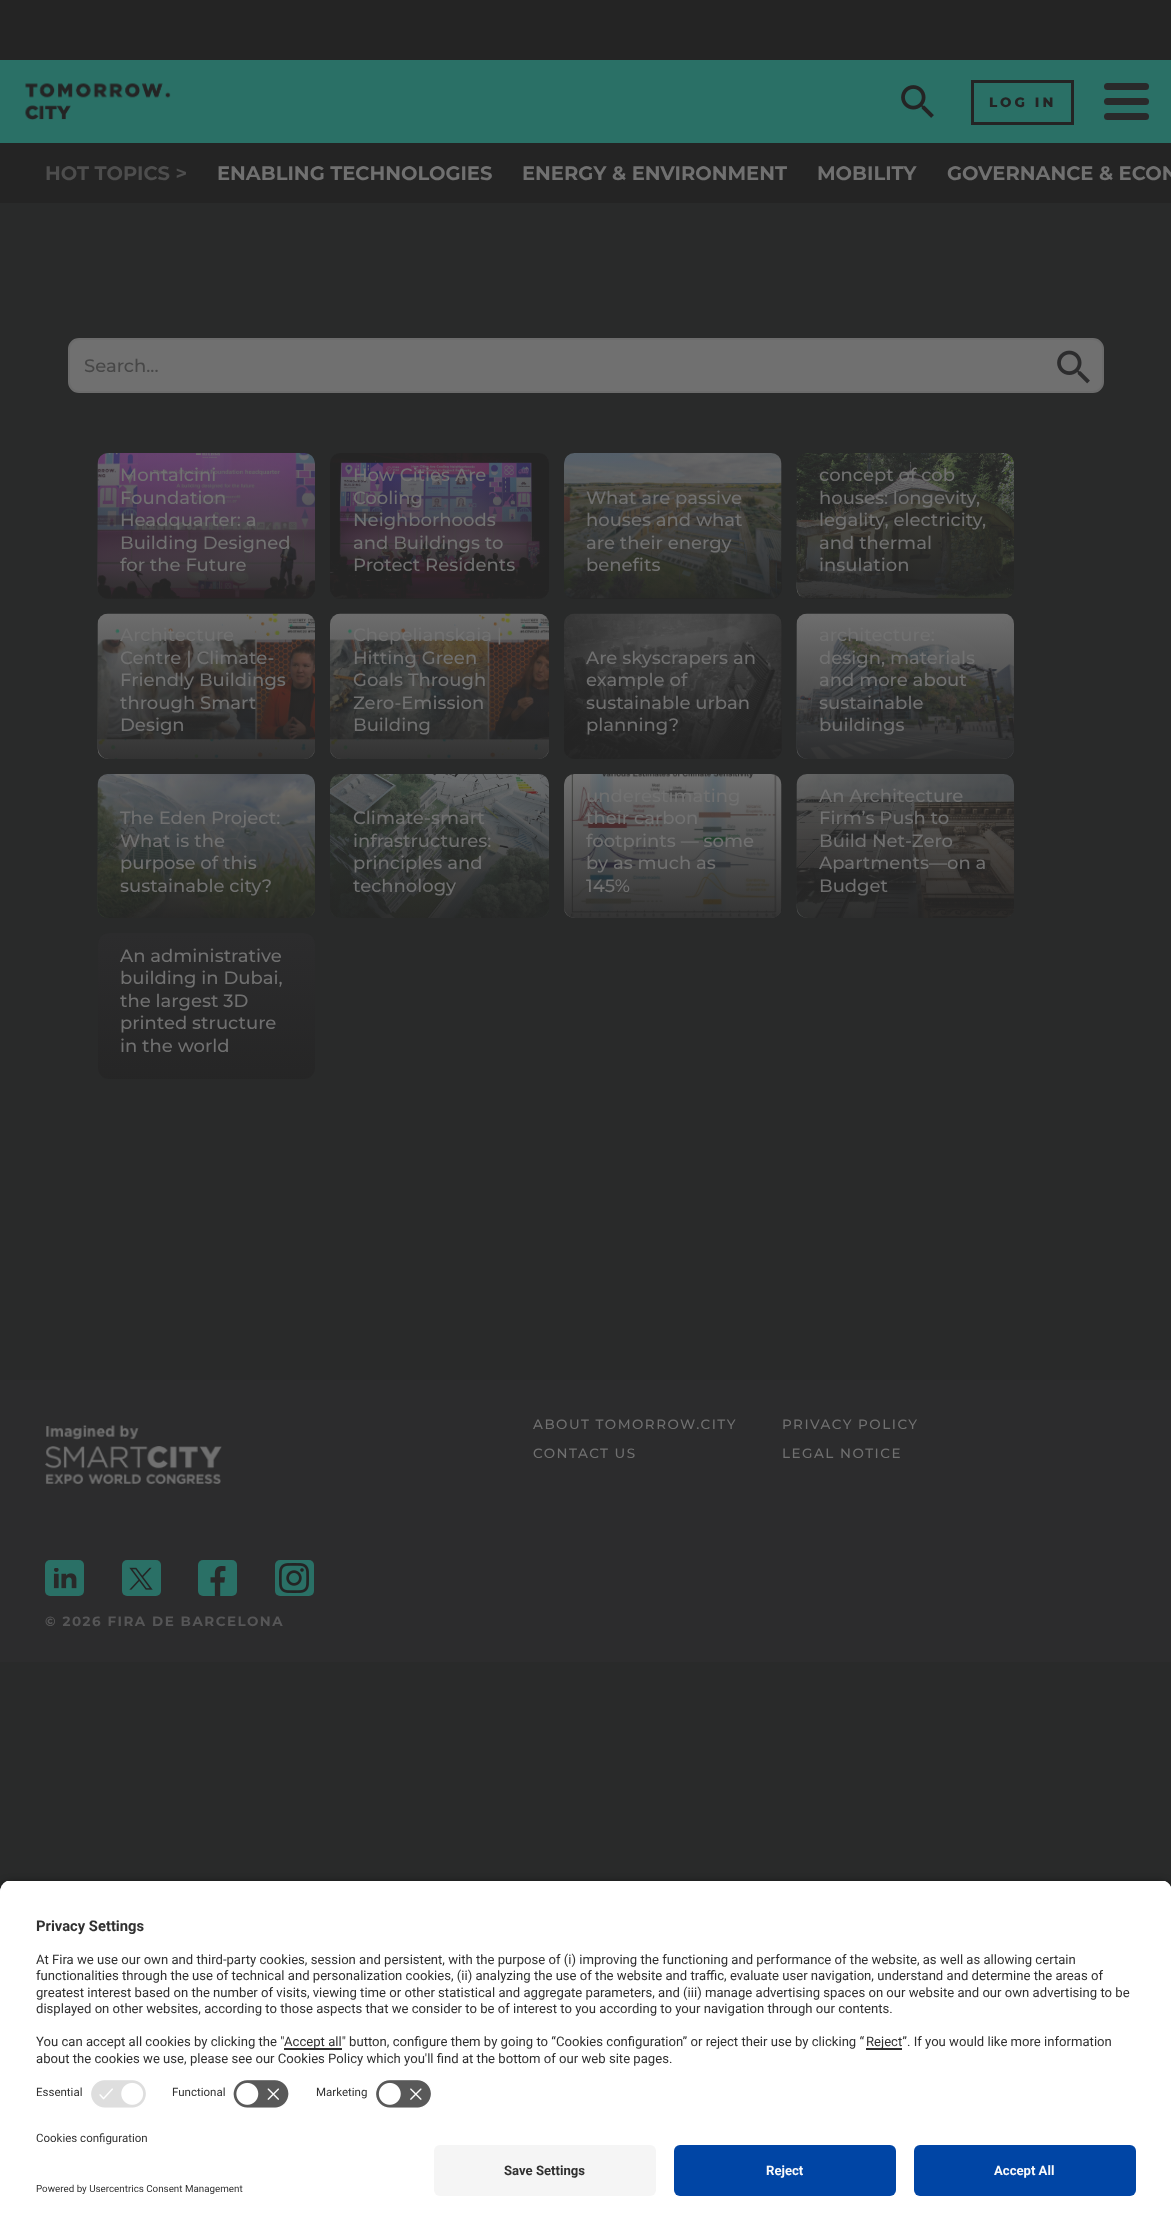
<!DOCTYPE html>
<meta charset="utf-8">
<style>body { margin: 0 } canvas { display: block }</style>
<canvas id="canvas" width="1171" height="2232"></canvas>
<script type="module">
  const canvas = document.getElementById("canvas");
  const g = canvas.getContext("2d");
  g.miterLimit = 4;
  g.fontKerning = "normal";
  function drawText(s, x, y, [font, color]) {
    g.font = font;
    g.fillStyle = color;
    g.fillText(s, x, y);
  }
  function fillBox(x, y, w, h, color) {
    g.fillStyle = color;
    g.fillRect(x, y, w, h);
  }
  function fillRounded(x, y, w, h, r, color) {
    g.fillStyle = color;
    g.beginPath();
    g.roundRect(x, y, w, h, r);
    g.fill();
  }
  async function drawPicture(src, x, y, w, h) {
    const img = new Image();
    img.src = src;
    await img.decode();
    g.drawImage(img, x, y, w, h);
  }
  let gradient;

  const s1 = ["800 13.5px Montserrat", "#242424"];
  const s2 = ["bold 19.5px Montserrat", "#4D4D4D"];
  const s3 = ["bold 19.5px Montserrat", "#707070"];
  const s4 = ["500 18px Montserrat", "#474747"];
  const s5 = ["500 18px Montserrat", "#707070"];
  const s6 = ["500 13.5px Montserrat", "#707070"];
  const s7 = ["bold 13.5px Montserrat", "#565657"];
  const s8 = ["bold 14.75px Roboto", "#303030"];
  const s9 = ["13.12px Roboto", "#303030"];
  const s10 = ["11.5px Roboto", "#303030"];
  const s11 = ["9.8px Roboto", "#303030"];
  const s12 = ["bold 13.12px Roboto", "#303030"];
  const s13 = ["bold 13.12px Roboto", "#FAFAFA"];

  fillBox(0, 0, 1171, 2232, "#292A2A");
  fillBox(0, 60, 1171, 83, "#2A7066");
  fillBox(0, 0, 1171, 60, "#242424");
  await drawPicture("pic1.png", 25, 83, 146, 37);
  await drawPicture("pic2.png", 901, 85, 33, 33);
  g.strokeStyle = "#242424";
  g.lineWidth = 3;
  g.strokeRect(972.5, 81.5, 100, 42);
  g.letterSpacing = "3px";
  drawText("LOG IN", 989, 107, s1);
  fillRounded(1104, 83, 45, 7, 3.5, "#292A2A");
  fillRounded(1104, 98, 45, 7, 3.5, "#292A2A");
  fillRounded(1104, 113, 45, 7, 3.5, "#292A2A");
  fillBox(0, 143, 1171, 60, "#242424");
  g.letterSpacing = "0px";
  drawText("HOT TOPICS >", 45, 180, s2);
  drawText("ENABLING TECHNOLOGIES", 217, 180, s3);
  drawText("ENERGY & ENVIRONMENT", 522, 180, s3);
  drawText("MOBILITY", 817, 180, s3);
  drawText("GOVERNANCE & ECON", 947, 180, s3);
  g.beginPath();
  g.roundRect(69, 339, 1034, 53, 10);
  g.fill();
  g.strokeStyle = "#6B6B6B";
  g.lineWidth = 2;
  g.stroke();
  drawText("Search...", 84, 372, s4);
  await drawPicture("pic3.png", 1057, 350, 33, 34);
  fillRounded(98, 453, 217, 146, 11, "#2C2C2D");
  await drawPicture("pic4.png", 97, 453, 218, 146);
  gradient = g.createLinearGradient(206, 599, 206, 453);
  gradient.addColorStop(0, "rgba(36, 36, 36, 0.8)");
  gradient.addColorStop(1, "rgba(36, 36, 36, 0)");
  g.fillStyle = gradient;
  g.beginPath();
  g.roundRect(98, 453, 217, 146, 11);
  g.fill();
  drawText("-", 195, 459, s5);
  drawText("Montalcini", 120, 481, s5);
  drawText("Foundation", 120, 504, s5);
  drawText("Headquarter: a", 120, 526, s5);
  drawText("Building Designed", 120, 549, s5);
  drawText("for the Future", 120, 571, s5);
  fillRounded(330, 453, 219, 146, 11, "#2C2C2D");
  await drawPicture("pic5.png", 330, 453, 219, 146);
  gradient = g.createLinearGradient(440, 599, 440, 453);
  gradient.addColorStop(0, "rgba(36, 36, 36, 0.8)");
  gradient.addColorStop(1, "rgba(36, 36, 36, 0)");
  g.fillStyle = gradient;
  g.beginPath();
  g.roundRect(330, 453, 219, 146, 11);
  g.fill();
  drawText("How Cities Are", 353, 481, s5);
  drawText("Cooling", 353, 504, s5);
  drawText("Neighborhoods", 353, 526, s5);
  drawText("and Buildings to", 353, 549, s5);
  drawText("Protect Residents", 353, 571, s5);
  fillRounded(564, 453, 218, 146, 11, "#2C2C2D");
  await drawPicture("pic6.png", 564, 453, 218, 146);
  gradient = g.createLinearGradient(673, 599, 673, 453);
  gradient.addColorStop(0, "rgba(36, 36, 36, 0.8)");
  gradient.addColorStop(1, "rgba(36, 36, 36, 0)");
  g.fillStyle = gradient;
  g.beginPath();
  g.roundRect(564, 453, 218, 146, 11);
  g.fill();
  drawText("What are passive", 586, 504, s5);
  drawText("houses and what", 586, 526, s5);
  drawText("are their energy", 586, 549, s5);
  drawText("benefits", 586, 571, s5);
  fillRounded(797, 453, 217, 146, 11, "#2C2C2D");
  await drawPicture("pic7.png", 796, 453, 218, 146);
  gradient = g.createLinearGradient(905, 599, 905, 453);
  gradient.addColorStop(0, "rgba(36, 36, 36, 0.8)");
  gradient.addColorStop(1, "rgba(36, 36, 36, 0)");
  g.fillStyle = gradient;
  g.beginPath();
  g.roundRect(797, 453, 217, 146, 11);
  g.fill();
  drawText("concept of cob", 819, 481, s5);
  drawText("houses: longevity,", 819, 504, s5);
  drawText("legality, electricity,", 819, 526, s5);
  drawText("and thermal", 819, 549, s5);
  drawText("insulation", 819, 571, s5);
  fillRounded(98, 614, 217, 145, 11, "#2C2C2D");
  await drawPicture("pic8.png", 97, 613, 218, 146);
  gradient = g.createLinearGradient(206, 759, 206, 614);
  gradient.addColorStop(0, "rgba(36, 36, 36, 0.8)");
  gradient.addColorStop(1, "rgba(36, 36, 36, 0)");
  g.fillStyle = gradient;
  g.beginPath();
  g.roundRect(98, 614, 217, 145, 11);
  g.fill();
  drawText("Architecture", 120, 641, s5);
  drawText("Centre | Climate-", 120, 664, s5);
  drawText("Friendly Buildings", 120, 686, s5);
  drawText("through Smart", 120, 709, s5);
  drawText("Design", 120, 731, s5);
  fillRounded(330, 614, 219, 145, 11, "#2C2C2D");
  await drawPicture("pic9.png", 330, 613, 219, 146);
  gradient = g.createLinearGradient(440, 759, 440, 614);
  gradient.addColorStop(0, "rgba(36, 36, 36, 0.8)");
  gradient.addColorStop(1, "rgba(36, 36, 36, 0)");
  g.fillStyle = gradient;
  g.beginPath();
  g.roundRect(330, 614, 219, 145, 11);
  g.fill();
  drawText("Chepelianskaia |", 353, 641, s5);
  drawText("Hitting Green", 353, 664, s5);
  drawText("Goals Through", 353, 686, s5);
  drawText("Zero-Emission", 353, 709, s5);
  drawText("Building", 353, 731, s5);
  fillRounded(564, 614, 218, 145, 11, "#2C2C2D");
  await drawPicture("pic10.png", 564, 613, 218, 146);
  gradient = g.createLinearGradient(673, 759, 673, 614);
  gradient.addColorStop(0, "rgba(36, 36, 36, 0.8)");
  gradient.addColorStop(1, "rgba(36, 36, 36, 0)");
  g.fillStyle = gradient;
  g.beginPath();
  g.roundRect(564, 614, 218, 145, 11);
  g.fill();
  drawText("Are skyscrapers an", 586, 664, s5);
  drawText("example of", 586, 686, s5);
  drawText("sustainable urban", 586, 709, s5);
  drawText("planning?", 586, 731, s5);
  fillRounded(797, 614, 217, 145, 11, "#2C2C2D");
  await drawPicture("pic11.png", 796, 613, 218, 146);
  gradient = g.createLinearGradient(905, 759, 905, 614);
  gradient.addColorStop(0, "rgba(36, 36, 36, 0.8)");
  gradient.addColorStop(1, "rgba(36, 36, 36, 0)");
  g.fillStyle = gradient;
  g.beginPath();
  g.roundRect(797, 614, 217, 145, 11);
  g.fill();
  drawText("architecture:", 819, 641, s5);
  drawText("design, materials", 819, 664, s5);
  drawText("and more about", 819, 686, s5);
  drawText("sustainable", 819, 709, s5);
  drawText("buildings", 819, 731, s5);
  fillRounded(98, 774, 217, 144, 11, "#2C2C2D");
  await drawPicture("pic12.png", 97, 774, 218, 144);
  gradient = g.createLinearGradient(206, 918, 206, 774);
  gradient.addColorStop(0, "rgba(36, 36, 36, 0.8)");
  gradient.addColorStop(1, "rgba(36, 36, 36, 0)");
  g.fillStyle = gradient;
  g.beginPath();
  g.roundRect(98, 774, 217, 144, 11);
  g.fill();
  drawText("The Eden Project:", 120, 824, s5);
  drawText("What is the", 120, 847, s5);
  drawText("purpose of this", 120, 869, s5);
  drawText("sustainable city?", 120, 892, s5);
  fillRounded(330, 774, 219, 144, 11, "#2C2C2D");
  await drawPicture("pic13.png", 330, 774, 219, 144);
  gradient = g.createLinearGradient(440, 918, 440, 774);
  gradient.addColorStop(0, "rgba(36, 36, 36, 0.8)");
  gradient.addColorStop(1, "rgba(36, 36, 36, 0)");
  g.fillStyle = gradient;
  g.beginPath();
  g.roundRect(330, 774, 219, 144, 11);
  g.fill();
  drawText("Climate-smart", 353, 824, s5);
  drawText("infrastructures:", 353, 847, s5);
  drawText("principles and", 353, 869, s5);
  drawText("technology", 353, 892, s5);
  fillRounded(564, 774, 218, 144, 11, "#2C2C2D");
  await drawPicture("pic14.png", 564, 774, 218, 144);
  gradient = g.createLinearGradient(673, 918, 673, 774);
  gradient.addColorStop(0, "rgba(36, 36, 36, 0.8)");
  gradient.addColorStop(1, "rgba(36, 36, 36, 0)");
  g.fillStyle = gradient;
  g.beginPath();
  g.roundRect(564, 774, 218, 144, 11);
  g.fill();
  drawText("underestimating", 586, 802, s5);
  drawText("their carbon", 586, 824, s5);
  drawText("footprints — some", 586, 847, s5);
  drawText("by as much as", 586, 869, s5);
  drawText("145%", 586, 892, s5);
  fillRounded(797, 774, 217, 144, 11, "#2C2C2D");
  await drawPicture("pic15.png", 796, 774, 218, 144);
  gradient = g.createLinearGradient(905, 918, 905, 774);
  gradient.addColorStop(0, "rgba(36, 36, 36, 0.8)");
  gradient.addColorStop(1, "rgba(36, 36, 36, 0)");
  g.fillStyle = gradient;
  g.beginPath();
  g.roundRect(797, 774, 217, 144, 11);
  g.fill();
  drawText("An Architecture", 819, 802, s5);
  drawText("Firm’s Push to", 819, 824, s5);
  drawText("Build Net-Zero", 819, 847, s5);
  drawText("Apartments—on a", 819, 869, s5);
  drawText("Budget", 819, 892, s5);
  fillRounded(98, 933, 217, 146, 11, "#2C2C2D");
  gradient = g.createLinearGradient(206, 1079, 206, 933);
  gradient.addColorStop(0, "rgba(36, 36, 36, 0.8)");
  gradient.addColorStop(1, "rgba(36, 36, 36, 0)");
  g.fillStyle = gradient;
  g.beginPath();
  g.roundRect(98, 933, 217, 146, 11);
  g.fill();
  drawText("An administrative", 120, 962, s5);
  drawText("building in Dubai,", 120, 984, s5);
  drawText("the largest 3D", 120, 1007, s5);
  drawText("printed structure", 120, 1029, s5);
  drawText("in the world", 120, 1052, s5);
  fillBox(0, 1380, 1171, 282, "#2C2C2D");
  await drawPicture("pic16.png", 45, 1425, 177, 60);
  g.letterSpacing = "1.5px";
  drawText("ABOUT TOMORROW.CITY", 533, 1429, s6);
  drawText("CONTACT US", 533, 1458, s6);
  drawText("PRIVACY POLICY", 782, 1429, s6);
  drawText("LEGAL NOTICE", 782, 1458, s6);
  fillRounded(45, 1560, 39, 36, 5, "#2A7066");
  await drawPicture("pic17.png", 53, 1568, 24, 21);
  fillRounded(122, 1560, 39, 36, 5, "#2A7066");
  await drawPicture("pic18.png", 129, 1567, 24, 23);
  fillRounded(198, 1560, 39, 36, 5, "#2A7066");
  await drawPicture("pic19.png", 210, 1566, 16, 30);
  fillRounded(275, 1560, 39, 36, 5, "#2A7066");
  await drawPicture("pic20.png", 279, 1563, 30, 30);
  drawText("© 2026 FIRA DE BARCELONA", 45, 1626, s7);
  g.fillStyle = "rgba(0, 0, 0, 0.8)";
  g.filter = "blur(5px)";
  g.beginPath();
  g.roundRect(0, 1884, 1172, 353, 12);
  g.fill();
  g.filter = "none";
  g.save();
  g.beginPath();
  g.moveTo(12, 1880);
  g.lineTo(1160, 1880);
  g.bezierCurveTo(1166.5, 1880, 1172, 1885.5, 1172, 1892);
  g.lineTo(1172, 2133);
  g.lineTo(0, 2133);
  g.lineTo(0, 1892);
  g.bezierCurveTo(0, 1885.5, 5.5, 1880, 12, 1880);
  g.closePath();
  g.clip();
  fillBox(0, 1881, 1171, 252, "#FFFFFF");
  fillBox(0, 1881, 1171, 192, "#FFFFFF");
  g.restore();
  g.letterSpacing = "0px";
  drawText("Privacy Settings", 36, 1931, s8);
  drawText("At Fira we use our own and third-party cookies, session and persistent, with the purpose of (i) improving the functioning and performance of the website, as well as allowing certain", 36, 1964, s9);
  drawText("functionalities through the use of technical and personalization cookies, (ii) analyzing the use of the website and traffic, evaluate user navigation, understand and determine the areas of", 36, 1980, s9);
  drawText("greatest interest based on the number of visits, viewing time or other statistical and aggregate parameters, and (iii) manage advertising spaces on our website and our own advertising to be", 36, 1997, s9);
  drawText("displayed on other websites, according to those aspects that we consider to be of interest to you according to your navigation through our contents.", 36, 2013, s9);
  drawText("You can accept all cookies by clicking the \"", 36, 2046, s9);
  fillBox(284, 2048, 58, 2, "#303030");
  drawText("Accept all\" button, configure them by going to “Cookies configuration” or reject their use by clicking “", 284, 2046, s9);
  fillBox(866, 2048, 36, 2, "#303030");
  drawText("Reject”. If you would like more information", 866, 2046, s9);
  drawText("about the cookies we use, please see our Cookies Policy which you'll find at the bottom of our web site pages.", 36, 2063, s9);
  drawText("Essential", 36, 2096, s10);
  await drawPicture("pic21.png", 91, 2080, 55, 28);
  drawText("Functional", 172, 2096, s10);
  await drawPicture("pic22.png", 233, 2080, 56, 28);
  drawText("Marketing", 316, 2096, s10);
  await drawPicture("pic23.png", 376, 2080, 55, 28);
  fillBox(0, 2133, 1171, 99, "#FFFFFF");
  drawText("Cookies configuration", 36, 2142, s10);
  drawText("Powered by Usercentrics Consent Management", 36, 2192, s11);
  fillRounded(434, 2145, 222, 51, 6, "#F5F5F5");
  drawText("Save Settings", 504, 2175, s12);
  fillRounded(674, 2145, 222, 51, 6, "#0045A5");
  drawText("Reject", 766, 2175, s13);
  fillRounded(914, 2145, 222, 51, 6, "#0045A5");
  drawText("Accept All", 994, 2175, s13);
</script>
